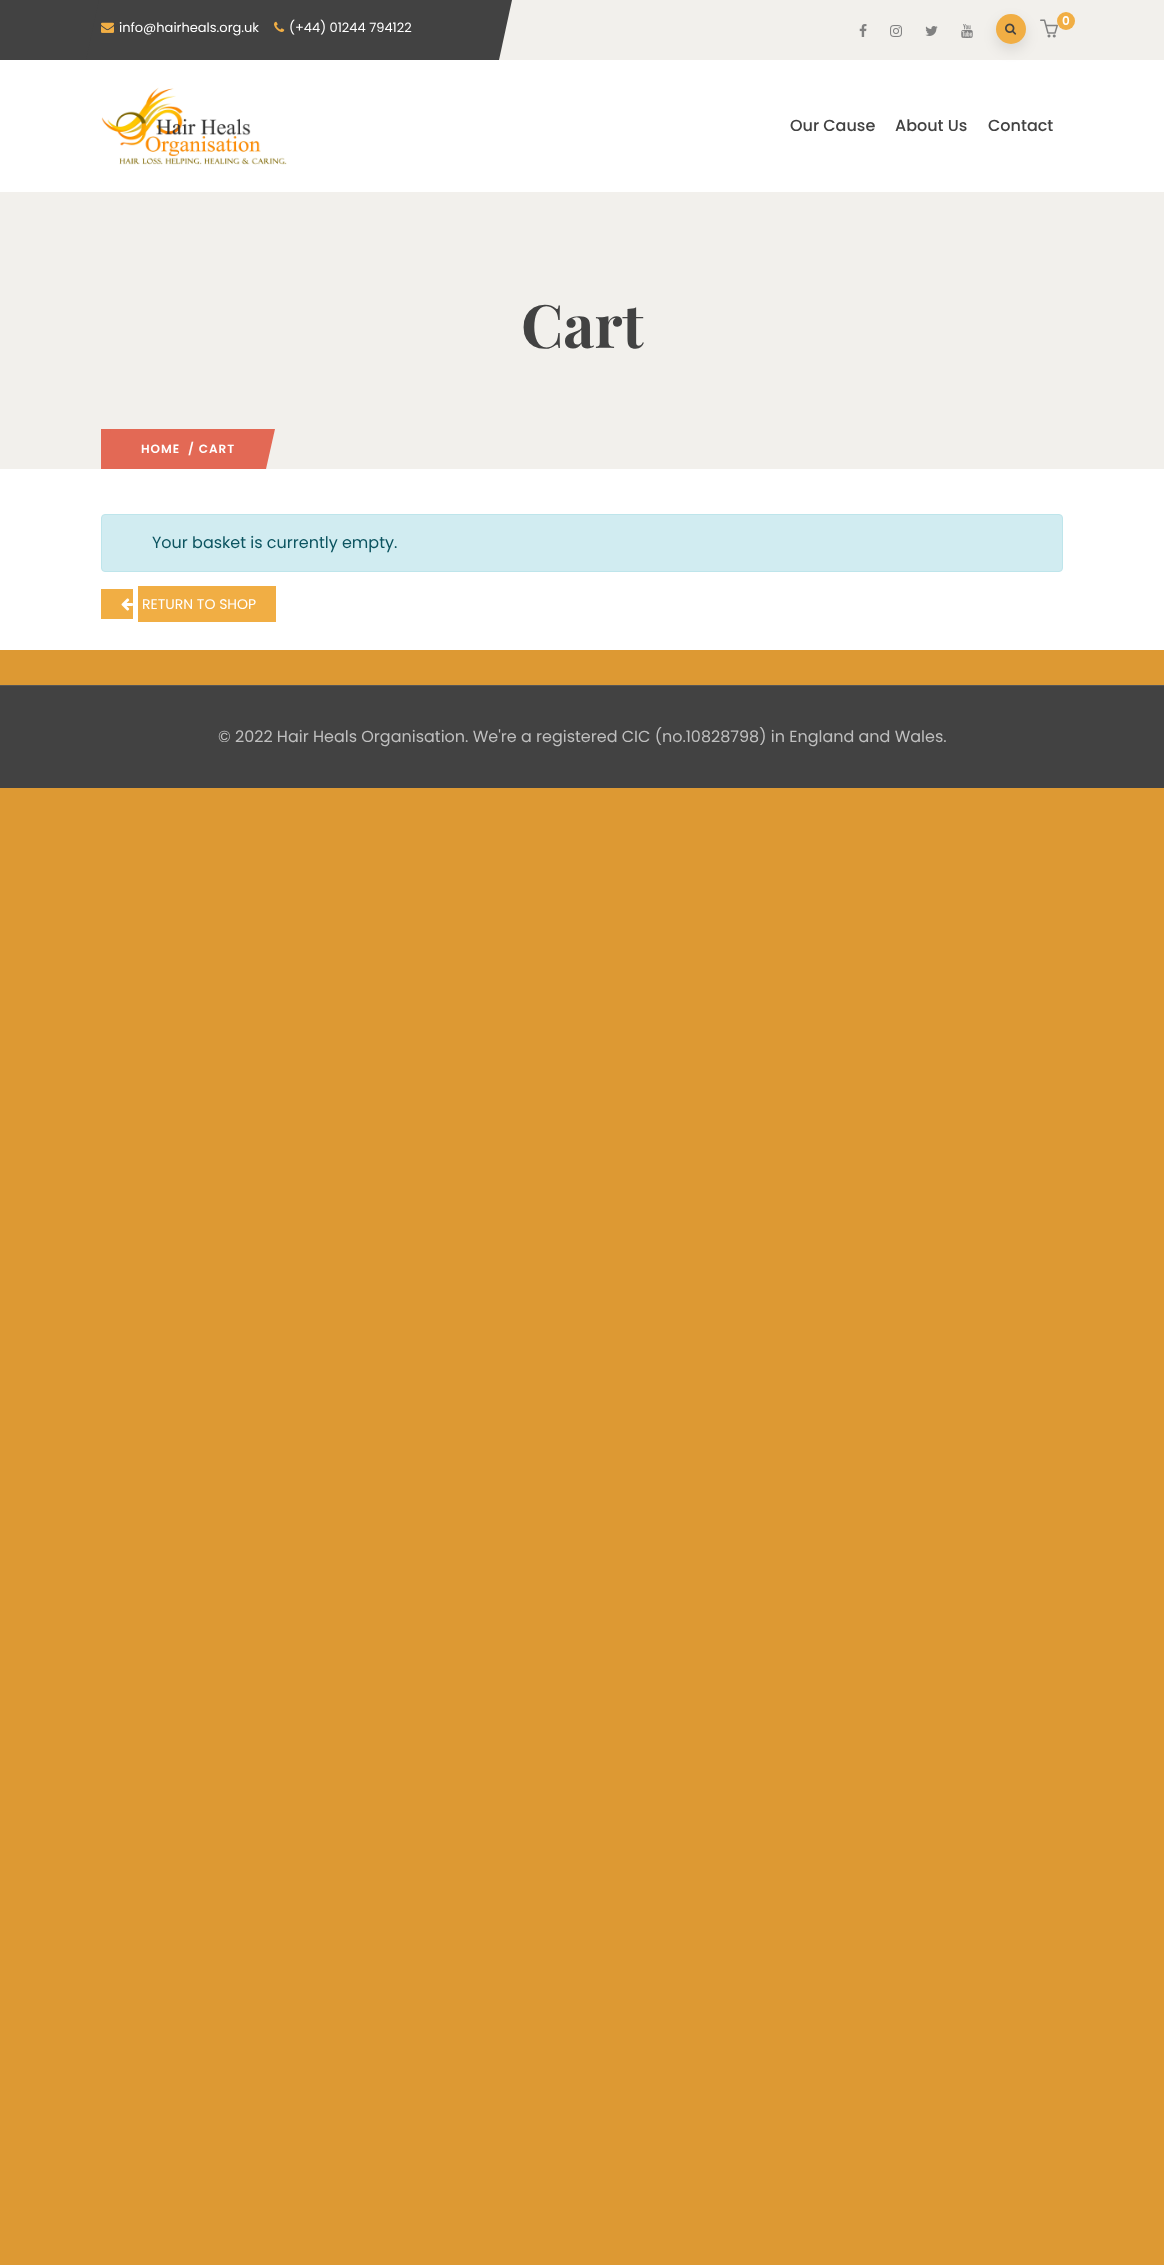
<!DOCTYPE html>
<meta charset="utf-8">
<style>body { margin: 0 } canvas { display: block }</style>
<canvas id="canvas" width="1164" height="2265"></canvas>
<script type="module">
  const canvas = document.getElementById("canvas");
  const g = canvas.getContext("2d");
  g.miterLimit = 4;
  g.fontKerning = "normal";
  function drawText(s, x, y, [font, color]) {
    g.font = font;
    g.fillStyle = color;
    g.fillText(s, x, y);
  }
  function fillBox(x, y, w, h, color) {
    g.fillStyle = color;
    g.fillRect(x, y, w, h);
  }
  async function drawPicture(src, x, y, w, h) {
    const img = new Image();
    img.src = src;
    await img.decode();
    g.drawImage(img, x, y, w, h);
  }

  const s1 = ["13px Poppins", "#FFFFFF"];
  const s2 = ["600 12px Poppins", "#FFFFFF"];
  const s3 = ["500 16px Poppins", "#424242"];
  const s4 = ["bold 60px Playfair Display", "#424242"];
  const s5 = ["16px Poppins", "#0C5460"];
  const s6 = ["14px Poppins", "#FFFFFF"];
  const s7 = ["16px Poppins", "#BFBFBF"];

  fillBox(0, 0, 1164, 2265, "#DD9933");
  fillBox(0, 60, 1164, 590, "#FFFFFF");
  fillBox(499, 0, 665, 60, "#F2F0EC");
  fillBox(0, 0, 99, 60, "#424242");
  g.beginPath();
  g.moveTo(99, 0);
  g.lineTo(512, 0);
  g.lineTo(499, 60);
  g.lineTo(86, 60);
  g.closePath();
  g.fill();
  await drawPicture("pic1.png", 101, 22, 13, 11);
  drawText("info@hairheals.org.uk", 119, 32, s1);
  await drawPicture("pic2.png", 274, 21, 11, 11);
  drawText("(+44) 01244 794122", 289, 32, s1);
  g.fillStyle = "rgba(0, 0, 0, 0.1)";
  g.filter = "blur(7px)";
  g.beginPath();
  g.roundRect(996, 20, 30, 30, 15);
  g.fill();
  g.filter = "none";
  g.fillStyle = "#F1AE44";
  g.beginPath();
  g.arc(1011, 29, 15, 0, Math.PI * 2);
  g.fill();
  await drawPicture("pic3.png", 1005, 23, 12, 12);
  await drawPicture("pic4.png", 1040, 19, 18, 19);
  g.beginPath();
  g.arc(1066, 21, 9, 0, Math.PI * 2);
  g.fill();
  drawText("0", 1062, 25, s2);
  await drawPicture("pic5.png", 859, 24, 8, 13);
  await drawPicture("pic6.png", 890, 25, 12, 12);
  await drawPicture("pic7.png", 925, 26, 13, 10);
  await drawPicture("pic8.png", 961, 24, 12, 14);
  await drawPicture("pic9.png", 101, 87, 186, 78);
  drawText("Our Cause", 790, 131, s3);
  drawText("About Us", 895, 131, s3);
  drawText("Contact", 988, 131, s3);
  fillBox(0, 192, 1164, 277, "#F2F0EC");
  drawText("Cart", 521, 348, s4);
  fillBox(101, 429, 10, 40, "#E36955");
  g.beginPath();
  g.moveTo(111, 429);
  g.lineTo(275, 429);
  g.lineTo(266, 469);
  g.lineTo(102, 469);
  g.closePath();
  g.fill();
  g.letterSpacing = "1px";
  drawText("HOME", 141, 453, s2);
  drawText("/ CART", 188, 453, s2);
  g.fillStyle = "#D1ECF1";
  g.beginPath();
  g.roundRect(101.5, 514.5, 961, 57, 3.5);
  g.fill();
  g.strokeStyle = "#BEE5EB";
  g.stroke();
  g.letterSpacing = "0px";
  drawText("Your basket is currently empty.", 152, 548, s5);
  fillBox(101, 589, 32, 30, "#F1AE44");
  await drawPicture("pic10.png", 121, 598, 12, 13);
  fillBox(138, 586, 138, 36, "#F1AE44");
  drawText("RETURN TO SHOP", 142, 609, s6);
  fillBox(0, 686, 1164, 102, "#424242");
  fillBox(0, 685, 1164, 1, "#555555");
  drawText("© 2022 Hair Heals Organisation. We're a registered CIC (no.10828798) in England and Wales.", 218, 742, s7);
</script>
